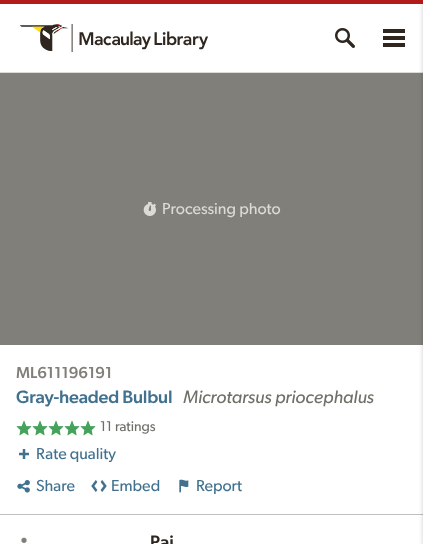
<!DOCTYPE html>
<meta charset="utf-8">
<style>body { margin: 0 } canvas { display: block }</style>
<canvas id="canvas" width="423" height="544"></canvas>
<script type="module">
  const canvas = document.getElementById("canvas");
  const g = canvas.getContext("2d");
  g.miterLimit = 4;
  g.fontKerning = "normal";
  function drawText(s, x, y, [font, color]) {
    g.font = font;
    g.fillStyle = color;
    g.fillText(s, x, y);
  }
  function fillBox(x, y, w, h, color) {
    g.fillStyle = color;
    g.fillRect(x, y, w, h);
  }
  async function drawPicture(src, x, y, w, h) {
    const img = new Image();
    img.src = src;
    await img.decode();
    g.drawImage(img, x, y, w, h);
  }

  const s1 = ["16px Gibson", "#DCDCD5"];
  const s2 = ["500 16px Gibson", "#817F79"];
  const s3 = ["500 18px Gibson", "#40718F"];
  const s4 = ["italic 18px Gibson", "#6F6E67"];
  const s5 = ["14px Gibson", "#6F6E67"];
  const s6 = ["16px Gibson", "#40718F"];
  const s7 = ["500 18px Gibson", "#2E261F"];

  fillBox(0, 0, 423, 544, "#FFFFFF");
  fillBox(0, 0, 423, 4, "#B31B1B");
  fillBox(0, 72, 423, 1, "#DBDBD9");
  await drawPicture("pic1.png", 20, 24, 188, 28);
  await drawPicture("pic2.png", 335, 28, 20, 20);
  await drawPicture("pic3.png", 383, 29, 22, 18);
  fillBox(0, 73, 423, 272, "#817F79");
  fillBox(0, 514, 423, 1, "#BFBFBF");
  g.fillStyle = "rgba(0, 0, 0, 0.2)";
  g.filter = "blur(2px)";
  g.beginPath();
  g.rect(423, 2, 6, 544);
  g.fill();
  g.filter = "none";
  await drawPicture("pic4.png", 143, 202, 13, 14);
  drawText("Processing photo", 162, 214, s1);
  drawText("ML611196191", 16, 378, s2);
  g.letterSpacing = "-0.2px";
  drawText("Gray-headed Bulbul", 16, 403, s3);
  g.letterSpacing = "0px";
  drawText("Microtarsus priocephalus", 183, 403, s4);
  await drawPicture("pic5.png", 16, 420, 16, 16);
  await drawPicture("pic5.png", 32, 420, 16, 16);
  await drawPicture("pic5.png", 48, 420, 16, 16);
  await drawPicture("pic5.png", 64, 420, 16, 16);
  await drawPicture("pic5.png", 80, 420, 16, 16);
  drawText("11 ratings", 100, 431, s5);
  await drawPicture("pic6.png", 19, 449, 10, 10);
  drawText("Rate quality", 36, 459, s6);
  await drawPicture("pic7.png", 17, 480, 13, 13);
  drawText("Share", 36, 491, s6);
  await drawPicture("pic8.png", 91, 480, 16, 12);
  drawText("Embed", 111, 491, s6);
  await drawPicture("pic9.png", 179, 479, 10, 14);
  drawText("Report", 196, 491, s6);
  await drawPicture("pic10.png", 21, 537, 6, 6);
  drawText("Pai", 150, 548, s7);
</script>
